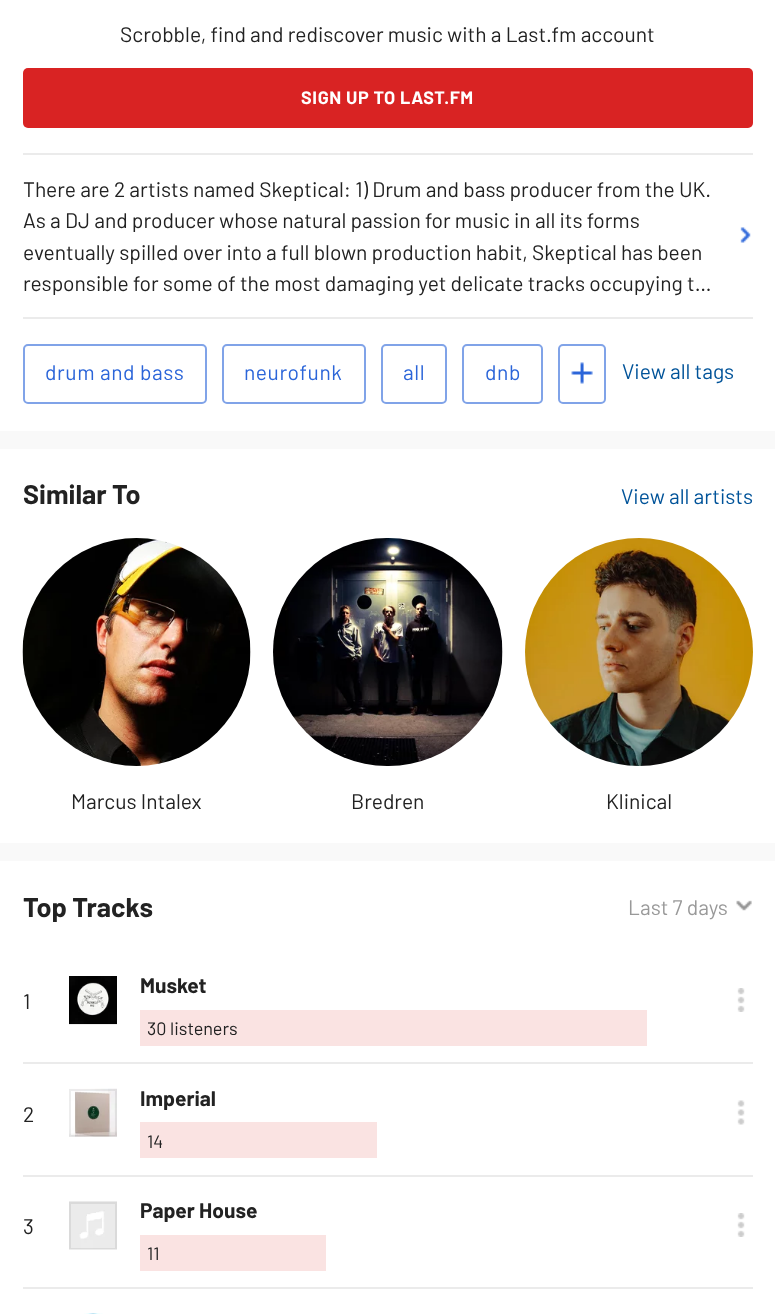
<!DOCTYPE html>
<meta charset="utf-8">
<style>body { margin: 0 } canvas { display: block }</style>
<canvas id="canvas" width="775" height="1314"></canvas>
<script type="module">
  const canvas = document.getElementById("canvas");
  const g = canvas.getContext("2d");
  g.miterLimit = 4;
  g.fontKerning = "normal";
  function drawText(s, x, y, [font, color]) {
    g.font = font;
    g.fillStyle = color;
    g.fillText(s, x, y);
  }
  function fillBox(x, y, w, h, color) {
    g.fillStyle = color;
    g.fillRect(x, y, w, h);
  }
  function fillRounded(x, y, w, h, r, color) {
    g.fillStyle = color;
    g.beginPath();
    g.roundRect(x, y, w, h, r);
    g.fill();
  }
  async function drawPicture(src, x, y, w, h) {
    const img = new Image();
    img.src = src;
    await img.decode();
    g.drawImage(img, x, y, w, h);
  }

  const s1 = ["21px Barlow", "#222222"];
  const s2 = ["bold 18px Barlow", "#FFFFFF"];
  const s3 = ["21px Barlow", "#2B65D9"];
  const s4 = ["21px Barlow", "#005399"];
  const s5 = ["bold 27px Barlow", "#222222"];
  const s6 = ["21px Barlow", "#999999"];
  const s7 = ["bold 21px Barlow", "#222222"];
  const s8 = ["18px Barlow", "#222222"];

  fillBox(0, 0, 775, 1314, "#FFFFFF");
  drawText("Scrobble, find and rediscover music with a Last.fm account", 120, 42, s1);
  fillRounded(23, 68, 730, 60, 5, "#D92323");
  g.letterSpacing = "0.6px";
  drawText("SIGN UP TO LAST.FM", 301, 104, s2);
  fillBox(23, 153, 730, 2, "#EBEBEB");
  g.letterSpacing = "0px";
  drawText("There are 2 artists named Skeptical: 1) Drum and bass producer from the UK.", 23, 197, s1);
  drawText("As a DJ and producer whose natural passion for music in all its forms", 23, 228, s1);
  await drawPicture("pic1.png", 740, 227, 11, 16);
  drawText("eventually spilled over into a full blown production habit, Skeptical has been", 23, 260, s1);
  drawText("responsible for some of the most damaging yet delicate tracks occupying t…", 23, 291, s1);
  fillBox(23, 317, 730, 2, "#EBEBEB");
  g.beginPath();
  g.roundRect(24, 345, 182, 58, 4);
  g.strokeStyle = "#80A3E8";
  g.lineWidth = 2;
  g.stroke();
  g.letterSpacing = "0.6px";
  drawText("drum and bass", 45, 380, s3);
  g.beginPath();
  g.roundRect(223, 345, 142, 58, 4);
  g.stroke();
  drawText("neurofunk", 244, 380, s3);
  g.beginPath();
  g.roundRect(382, 345, 64, 58, 4);
  g.stroke();
  drawText("all", 403, 380, s3);
  g.beginPath();
  g.roundRect(463, 345, 79, 58, 4);
  g.stroke();
  drawText("dnb", 485, 380, s3);
  g.beginPath();
  g.roundRect(559, 345, 46, 58, 4);
  g.stroke();
  await drawPicture("pic2.png", 571, 362, 22, 22);
  g.letterSpacing = "0px";
  drawText("View all tags", 622, 379, s4);
  fillBox(0, 431, 775, 18, "#F9F9F9");
  drawText("Similar To", 23, 504, s5);
  drawText("View all artists", 621, 504, s4);
  await drawPicture("pic3.png", 22, 538, 229, 228);
  drawText("Marcus Intalex", 71, 809, s1);
  await drawPicture("pic4.png", 273, 538, 230, 228);
  drawText("Bredren", 351, 809, s1);
  await drawPicture("pic5.png", 525, 538, 228, 228);
  drawText("Klinical", 606, 809, s1);
  fillBox(0, 843, 775, 18, "#F9F9F9");
  drawText("Top Tracks", 23, 917, s5);
  drawText("Last 7 days", 628, 915, s6);
  await drawPicture("pic6.png", 736, 900, 16, 11);
  await drawPicture("pic7.png", 69, 976, 48, 48);
  g.strokeStyle = "rgba(0, 0, 0, 0.07)";
  g.strokeRect(70, 978, 46, 46);
  drawText("Musket", 140, 993, s7);
  drawText("1", 23, 1009, s1);
  await drawPicture("pic8.png", 737, 988, 8, 24);
  fillBox(140, 1010, 507, 36, "#FAE3E2");
  drawText("30 listeners", 147, 1035, s8);
  fillBox(23, 1062, 730, 2, "#EBEBEB");
  drawText("2", 23, 1122, s1);
  await drawPicture("pic9.png", 69, 1088, 48, 49);
  g.strokeRect(70, 1090, 46, 46);
  drawText("Imperial", 140, 1106, s7);
  await drawPicture("pic10.png", 737, 1100, 8, 25);
  fillBox(140, 1122, 237, 36, "#FAE3E2");
  drawText("14", 147, 1148, s8);
  fillBox(23, 1175, 730, 2, "#EBEBEB");
  drawText("3", 23, 1234, s1);
  await drawPicture("pic11.png", 69, 1201, 48, 48);
  g.strokeRect(70, 1203, 46, 46);
  drawText("Paper House", 140, 1218, s7);
  await drawPicture("pic8.png", 737, 1213, 8, 24);
  fillBox(140, 1235, 186, 36, "#FAE3E2");
  drawText("11", 147, 1260, s8);
  fillBox(23, 1287, 730, 2, "#EBEBEB");
  await drawPicture("pic12.png", 84, 1313, 19, 1);
</script>
